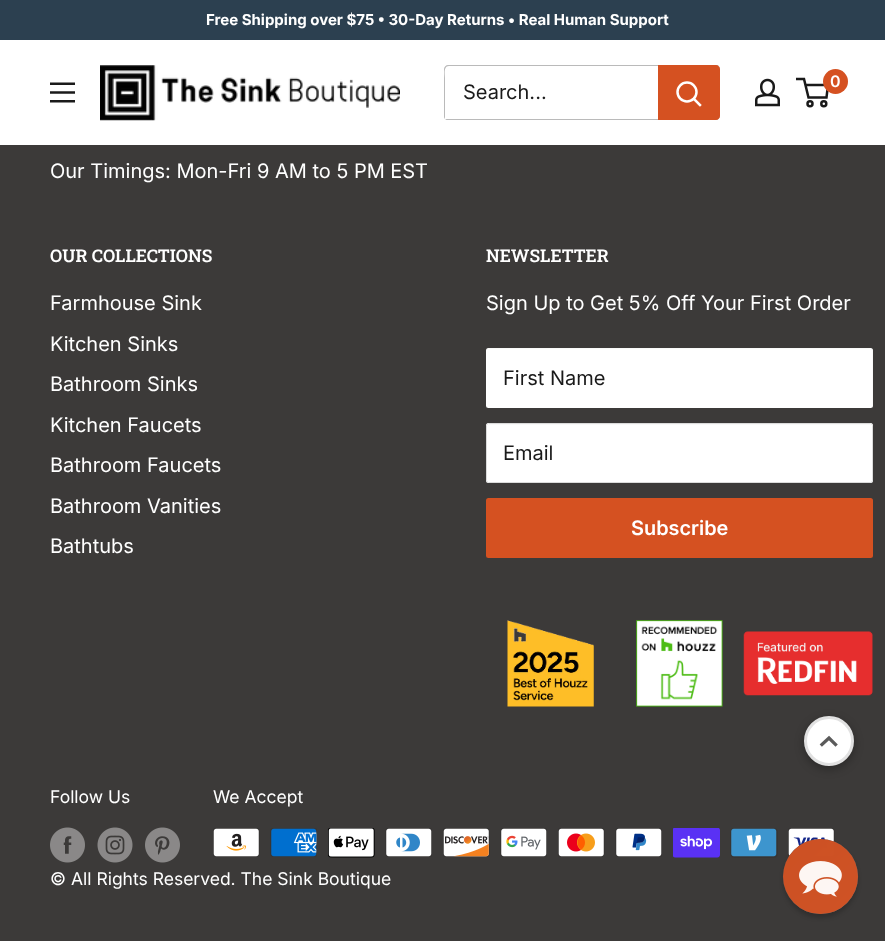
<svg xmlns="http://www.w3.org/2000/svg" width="885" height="941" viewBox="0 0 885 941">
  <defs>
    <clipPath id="clip1"><path d="M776 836H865V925H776ZM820.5 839C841 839 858 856 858 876.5C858 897 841 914 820.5 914C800 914 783 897 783 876.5C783 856 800 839 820.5 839Z" clip-rule="evenodd"/></clipPath>
    <linearGradient id="g1" gradientUnits="userSpaceOnUse" x1="783" y1="839" x2="858" y2="914"><stop offset="0" stop-color="#2c4050" stop-opacity="0.95"/><stop offset="1" stop-color="#6b7985" stop-opacity="0.95"/></linearGradient>
  </defs>
  <rect width="100%" height="100%" fill="#3c3a39"/>
  <path d="M0 0h885v40H0z" fill="#2c4050"/>
  <path d="M0 40h885v105H0z" fill="#fff"/>
  <image x="50" y="82" width="25" height="21" href="img/1.png"/>
  <image x="100" y="65" width="300" height="56" href="img/2.png"/>
  <path d="M445 119C446 120 447 120 448 120H716C718 120 720 118 720 116V69C720 68 719 67 719 66V107C719 110 721 119 715 119Z" fill="#bababa"/>
  <path d="M449 66H719C718 65 717 65 716 65H448C446 65 444 67 444 69V116C444 117 444 118 445 119V78C445 76 443 66 449 66Z" fill="#bababa"/>
  <path d="M658 65H716C718 65 720 67 720 69V116C720 118 718 120 716 120H658Z" fill="#d55121"/>
  <path d="M700 105L694 99" fill="none" stroke="#fff" stroke-width="2.5" stroke-linecap="square"/>
  <circle cx="687" cy="92" r="9.5" fill="none" stroke="#fff" stroke-width="2.5"/>
  <image x="755" y="78" width="25" height="29" href="img/3.png"/>
  <circle cx="810" cy="103.8" r="2.5" fill="none" stroke="#1a1a1a" stroke-width="2.5"/>
  <circle cx="823.8" cy="103.8" r="2.5" fill="none" stroke="#1a1a1a" stroke-width="2.5"/>
  <path d="M805.5 85H828L826.5 97.5H808.5L804 79H796" fill="none" stroke="#1a1a1a" stroke-width="2.5"/>
  <circle cx="835.5" cy="81.5" r="12.5" fill="#d55121"/>
  <rect x="486" y="348" width="387" height="60" rx="2.5" fill="#fff"/>
  <path d="M489 349H870C871 349 872 350 872 351V408C872 407 873 406 873 406V350C873 349 872 348 870 348H488C487 348 486 349 486 350V351C486 350 487 349 489 349Z" fill="#e8e8e840"/>
  <rect x="486" y="423" width="387" height="60" rx="2.5" fill="#fff"/>
  <path d="M489 425H870L871 426C871 425 871 424 870 424H489L488 425V426Z" fill="#f9f9f9"/>
  <rect x="486.5" y="423.5" width="386" height="59" rx="2" fill="none" stroke="#dbdbdb"/>
  <rect x="486" y="498" width="387" height="60" rx="2.5" fill="#d55121"/>
  <image x="507" y="620" width="87" height="87" href="img/4.png"/>
  <image x="636" y="620" width="87" height="87" href="img/5.png"/>
  <image x="743" y="631" width="130" height="65" href="img/6.png"/>
  <image x="50" y="827" width="35" height="36" href="img/7.png"/>
  <image x="97" y="827" width="36" height="36" href="img/8.png"/>
  <image x="145" y="827" width="35" height="36" href="img/9.png"/>
  <image x="213" y="828" width="47" height="29" href="img/10.png"/>
  <image x="270" y="828" width="47" height="29" href="img/11.png"/>
  <image x="328" y="828" width="47" height="30" href="img/12.png"/>
  <image x="385" y="828" width="47" height="29" href="img/13.png"/>
  <image x="443" y="828" width="47" height="29" href="img/14.png"/>
  <image x="500" y="828" width="47" height="29" href="img/15.png"/>
  <image x="558" y="828" width="47" height="29" href="img/16.png"/>
  <image x="615" y="828" width="47" height="29" href="img/17.png"/>
  <image x="673" y="828" width="47" height="30" href="img/18.png"/>
  <image x="730" y="828" width="48" height="30" href="img/19.png"/>
  <image x="788" y="828" width="47" height="29" href="img/20.png"/>
  <rect x="804" y="719" width="50" height="50" rx="25" fill="#0000004d" filter="blur(5px)"/>
  <circle cx="829" cy="741" r="23.5" fill="#fff" stroke="#e1e1e1" stroke-width="3"/>
  <path d="M822 744.5L829 738L835.5 744.5" fill="none" stroke="#5b5b5b" stroke-width="3.3" stroke-linecap="square"/>
  <g clip-path="url(#clip1)">
    <rect x="783" y="843" width="75" height="75" rx="37.5" fill="#00000030" filter="blur(2px)"/>
  </g>
  <circle cx="820.5" cy="876.5" r="37.5" fill="url(#g1)"/>
  <circle cx="820.5" cy="876.5" r="37.5" fill="#d55121f2"/>
  <image x="799" y="861" width="43" height="36" href="img/21.png"/>
  <text x="206" y="25" font-family="Inter" font-size="15" font-weight="bold" fill="#fff">Free Shipping over $75 • 30-Day Returns • Real Human Support</text>
  <text x="463" y="99" font-family="Inter" font-size="20" fill="#1a1a1a">Search...</text>
  <text x="830" y="87" font-family="'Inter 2'" font-size="16" font-weight="600" fill="#fff">0</text>
  <text x="50" y="178" font-family="Inter" font-size="20" fill="#fff">Our Timings: Mon-Fri 9 AM to 5 PM EST</text>
  <text x="50" y="262" font-family="Roboto Slab" font-size="17.5" font-weight="600" fill="#fff">OUR COLLECTIONS</text>
  <g font-family="Inter" font-size="20" fill="#fff">
    <text x="50" y="310">Farmhouse Sink</text>
    <text x="50" y="351">Kitchen Sinks</text>
    <text x="50" y="391">Bathroom Sinks</text>
    <text x="50" y="432">Kitchen Faucets</text>
    <text x="50" y="472">Bathroom Faucets</text>
    <text x="50" y="513">Bathroom Vanities</text>
    <text x="50" y="553">Bathtubs</text>
  </g>
  <text x="486" y="262" font-family="Roboto Slab" font-size="17.5" font-weight="600" fill="#fff">NEWSLETTER</text>
  <text x="486" y="310" font-family="Inter" font-size="20" fill="#fff">Sign Up to Get 5% Off Your First Order</text>
  <g font-family="Inter" font-size="20" fill="#1a1a1a">
    <text x="503" y="385">First Name</text>
    <text x="503" y="460">Email</text>
  </g>
  <text x="631" y="535" font-family="Inter" font-size="20" font-weight="600" fill="#fff">Subscribe</text>
  <g font-family="Inter" font-size="17.5" fill="#fff">
    <text x="50" y="803">Follow Us</text>
    <text x="213" y="803">We Accept</text>
    <text x="50" y="885">© All Rights Reserved. The Sink Boutique</text>
  </g>
</svg>
